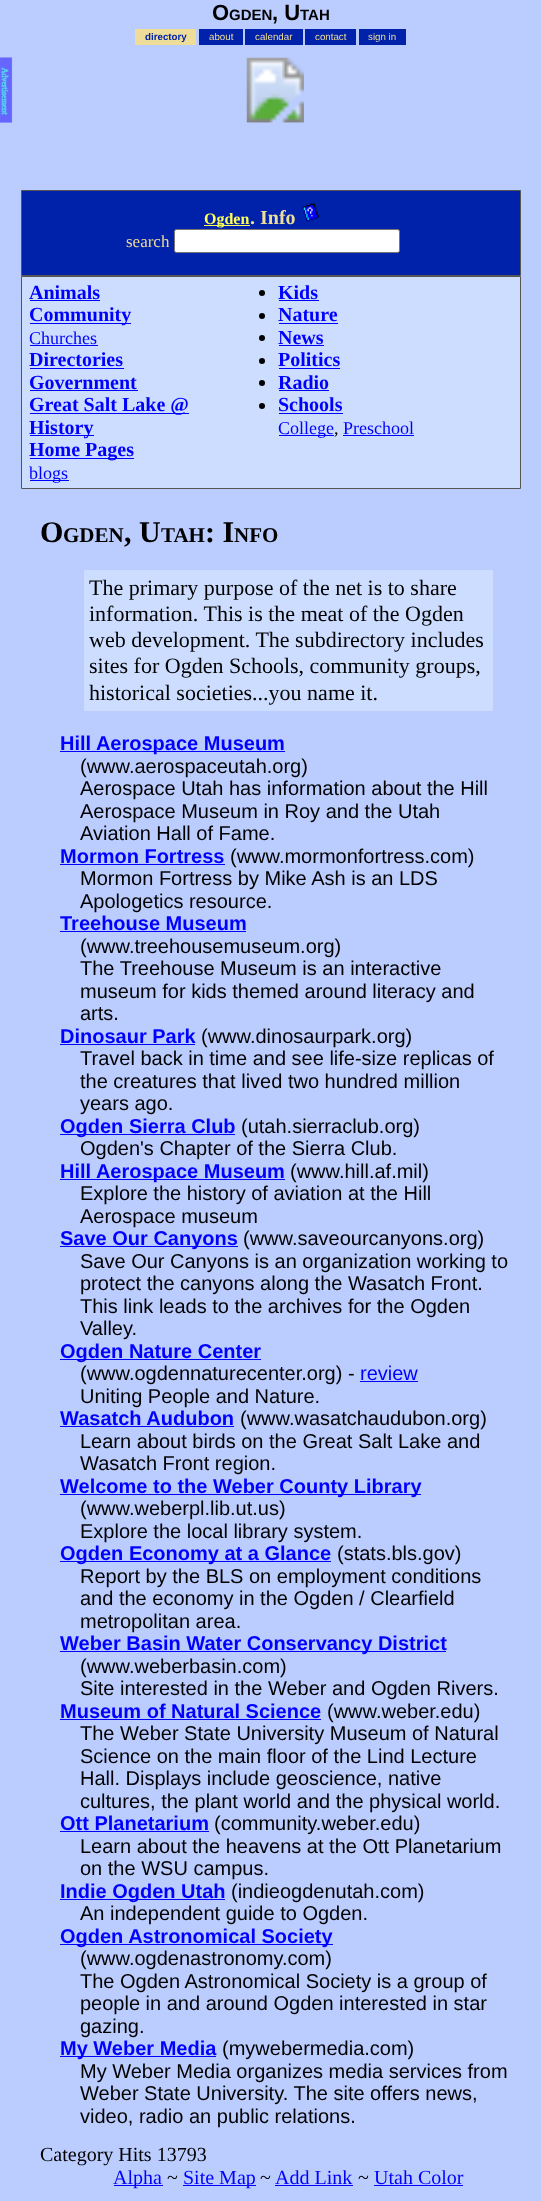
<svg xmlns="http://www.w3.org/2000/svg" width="541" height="2201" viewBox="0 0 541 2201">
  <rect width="100%" height="100%" fill="#bcf"/>
  <path d="M135 29h61v16H135z" fill="#ed9"/>
  <path d="M199 29h44v16H199z" fill="#02a"/>
  <path d="M245 29h58v16H245z" fill="#02a"/>
  <path d="M305 29h51v16H305z" fill="#02a"/>
  <path d="M359 29h47v16H359z" fill="#02a"/>
  <image x="0" y="57" width="304" height="66" href="img/1.png"/>
  <path d="M21.5 190.5h499v85H21.5z" fill="#02a" stroke="#555"/>
  <path d="M204 225h46v1H204z" fill="#ff5"/>
  <image x="302" y="203" width="17" height="19" href="img/2.png"/>
  <rect x="174.5" y="229.5" width="225" height="23" rx="2" fill="#fff" stroke="#767676"/>
  <path d="M21.5 276.5h499v212H21.5z" fill="#cdf" stroke="#555"/>
  <path d="M30 300h70v1H30z" fill="#00f"/>
  <path d="M30 323h101v1H30z" fill="#00f"/>
  <path d="M30 345h68v1H30z" fill="#00f"/>
  <path d="M30 368h94v1H30z" fill="#00f"/>
  <path d="M30 390h108v1H30z" fill="#00f"/>
  <path d="M30 413h159v1H30z" fill="#00f"/>
  <path d="M30 435h64v1H30z" fill="#00f"/>
  <path d="M30 458h104v1H30z" fill="#00f"/>
  <path d="M30 480h39v1H30z" fill="#00f"/>
  <circle cx="262" cy="293" r="3" fill="#000"/>
  <path d="M279 300h40v1H279z" fill="#00f"/>
  <circle cx="262" cy="316" r="3" fill="#000"/>
  <path d="M279 323h59v1H279z" fill="#00f"/>
  <circle cx="262" cy="338" r="3" fill="#000"/>
  <path d="M279 345h45v1H279z" fill="#00f"/>
  <circle cx="262" cy="361" r="3" fill="#000"/>
  <path d="M279 368h61v1H279z" fill="#00f"/>
  <circle cx="262" cy="383" r="3" fill="#000"/>
  <path d="M279 390h50v1H279z" fill="#00f"/>
  <circle cx="262" cy="406" r="3" fill="#000"/>
  <path d="M279 413h64v1H279z" fill="#00f"/>
  <path d="M279 435h55v1H279z" fill="#00f"/>
  <path d="M343 435h71v1H343z" fill="#00f"/>
  <path d="M84 570h409v141H84z" fill="#cdf"/>
  <path d="M60 751h225v1H60z" fill="#00f"/>
  <path d="M60 864h165v1H60z" fill="#00f"/>
  <path d="M60 931h186v1H60z" fill="#00f"/>
  <path d="M60 1044h135v1H60z" fill="#00f"/>
  <path d="M60 1134h175v1H60z" fill="#00f"/>
  <path d="M60 1179h225v1H60z" fill="#00f"/>
  <path d="M60 1246h178v1H60z" fill="#00f"/>
  <path d="M60 1359h201v1H60z" fill="#00f"/>
  <path d="M360 1381h58v1H360z" fill="#00f"/>
  <path d="M60 1426h174v1H60z" fill="#00f"/>
  <path d="M60 1494h361v1H60z" fill="#00f"/>
  <path d="M60 1561h271v1H60z" fill="#00f"/>
  <path d="M60 1651h386v1H60z" fill="#00f"/>
  <path d="M60 1719h261v1H60z" fill="#00f"/>
  <path d="M60 1831h149v1H60z" fill="#00f"/>
  <path d="M60 1899h165v1H60z" fill="#00f"/>
  <path d="M60 1944h273v1H60z" fill="#00f"/>
  <path d="M60 2056h156v1H60z" fill="#00f"/>
  <path d="M114 2185h49v1H114z" fill="#00f"/>
  <path d="M183 2185h73v1H183z" fill="#00f"/>
  <path d="M275 2185h78v1H275z" fill="#00f"/>
  <path d="M374 2185h89v1H374z" fill="#00f"/>
  <text x="212" y="20" font-family="Liberation Sans" font-size="22" font-weight="bold" fill="#000">O</text>
  <text x="229" y="20" font-family="Liberation Sans" font-size="15" font-weight="bold" fill="#000">GDEN</text>
  <text x="272" y="20" font-family="Liberation Sans" font-size="22" font-weight="bold" fill="#000">, U</text>
  <text x="300" y="20" font-family="Liberation Sans" font-size="15" font-weight="bold" fill="#000">TAH</text>
  <text x="145" y="40" font-family="Liberation Sans" font-size="9.75" font-weight="bold" fill="#02a">directory</text>
  <g font-family="Liberation Sans" font-size="9.75" fill="#ed9">
    <text x="209" y="40">about</text>
    <text x="255" y="40">calendar</text>
    <text x="315" y="40">contact</text>
    <text x="368" y="40">sign in</text>
  </g>
  <text x="204" y="224" font-family="Liberation Serif" font-size="16" font-weight="bold" fill="#ff5">Ogden</text>
  <text x="250" y="224" font-family="Liberation Serif" font-size="20" font-weight="bold" fill="#ed9">. Info</text>
  <text x="126" y="247" font-family="Liberation Serif" font-size="17" fill="#ed9">search</text>
  <g font-family="Liberation Serif" font-size="20" font-weight="bold" fill="#00f">
    <text x="29" y="299">Animals</text>
    <text x="29" y="321">Community</text>
  </g>
  <text x="29" y="344" font-family="Liberation Serif" font-size="18" fill="#00f">Churches</text>
  <g font-family="Liberation Serif" font-size="20" font-weight="bold" fill="#00f">
    <text x="29" y="366">Directories</text>
    <text x="29" y="389">Government</text>
    <text x="29" y="411">Great Salt Lake @</text>
    <text x="29" y="434">History</text>
    <text x="29" y="456">Home Pages</text>
  </g>
  <text x="29" y="479" font-family="Liberation Serif" font-size="18" fill="#00f">blogs</text>
  <g font-family="Liberation Serif" font-size="20" font-weight="bold" fill="#00f">
    <text x="278" y="299">Kids</text>
    <text x="278" y="321">Nature</text>
    <text x="278" y="344">News</text>
    <text x="278" y="366">Politics</text>
    <text x="278" y="389">Radio</text>
    <text x="278" y="411">Schools</text>
  </g>
  <text x="278" y="434" font-family="Liberation Serif" font-size="18" fill="#00f">College</text>
  <text x="334" y="434" font-family="Liberation Serif" font-size="18" fill="#000">,</text>
  <text x="343" y="434" font-family="Liberation Serif" font-size="18" fill="#00f">Preschool</text>
  <text x="40" y="542" font-family="Liberation Serif" font-size="30" font-weight="bold" fill="#000">O</text>
  <text x="63" y="542" font-family="Liberation Serif" font-size="21" font-weight="bold" fill="#000">GDEN</text>
  <text x="124" y="542" font-family="Liberation Serif" font-size="30" font-weight="bold" fill="#000">, U</text>
  <text x="161" y="542" font-family="Liberation Serif" font-size="21" font-weight="bold" fill="#000">TAH</text>
  <text x="205" y="542" font-family="Liberation Serif" font-size="30" font-weight="bold" fill="#000">: I</text>
  <text x="234" y="542" font-family="Liberation Serif" font-size="21" font-weight="bold" fill="#000">NFO</text>
  <g font-family="Liberation Serif" font-size="22" fill="#000">
    <text x="89" y="595">The primary purpose of the net is to share</text>
    <text x="89" y="621">information. This is the meat of the Ogden</text>
    <text x="89" y="647">web development. The subdirectory includes</text>
    <text x="89" y="673">sites for Ogden Schools, community groups,</text>
    <text x="89" y="700">historical societies...you name it.</text>
  </g>
  <text x="60" y="750" font-family="Liberation Sans" font-size="20" font-weight="bold" fill="#00f">Hill Aerospace Museum</text>
  <g font-family="Liberation Sans" font-size="20" fill="#000">
    <text x="80" y="773">(www.aerospaceutah.org)</text>
    <text x="80" y="795">Aerospace Utah has information about the Hill</text>
    <text x="80" y="818">Aerospace Museum in Roy and the Utah</text>
    <text x="80" y="840">Aviation Hall of Fame.</text>
  </g>
  <text x="60" y="863" font-family="Liberation Sans" font-size="20" font-weight="bold" fill="#00f">Mormon Fortress</text>
  <g font-family="Liberation Sans" font-size="20" fill="#000">
    <text x="230" y="863">(www.mormonfortress.com)</text>
    <text x="80" y="885">Mormon Fortress by Mike Ash is an LDS</text>
    <text x="80" y="908">Apologetics resource.</text>
  </g>
  <text x="60" y="930" font-family="Liberation Sans" font-size="20" font-weight="bold" fill="#00f">Treehouse Museum</text>
  <g font-family="Liberation Sans" font-size="20" fill="#000">
    <text x="80" y="953">(www.treehousemuseum.org)</text>
    <text x="80" y="975">The Treehouse Museum is an interactive</text>
    <text x="80" y="998">museum for kids themed around literacy and</text>
    <text x="80" y="1020">arts.</text>
  </g>
  <text x="60" y="1043" font-family="Liberation Sans" font-size="20" font-weight="bold" fill="#00f">Dinosaur Park</text>
  <g font-family="Liberation Sans" font-size="20" fill="#000">
    <text x="201" y="1043">(www.dinosaurpark.org)</text>
    <text x="80" y="1065">Travel back in time and see life-size replicas of</text>
    <text x="80" y="1088">the creatures that lived two hundred million</text>
    <text x="80" y="1110">years ago.</text>
  </g>
  <text x="60" y="1133" font-family="Liberation Sans" font-size="20" font-weight="bold" fill="#00f">Ogden Sierra Club</text>
  <g font-family="Liberation Sans" font-size="20" fill="#000">
    <text x="241" y="1133">(utah.sierraclub.org)</text>
    <text x="80" y="1155">Ogden's Chapter of the Sierra Club.</text>
  </g>
  <text x="60" y="1178" font-family="Liberation Sans" font-size="20" font-weight="bold" fill="#00f">Hill Aerospace Museum</text>
  <g font-family="Liberation Sans" font-size="20" fill="#000">
    <text x="290" y="1178">(www.hill.af.mil)</text>
    <text x="80" y="1200">Explore the history of aviation at the Hill</text>
    <text x="80" y="1223">Aerospace museum</text>
  </g>
  <text x="60" y="1245" font-family="Liberation Sans" font-size="20" font-weight="bold" fill="#00f">Save Our Canyons</text>
  <g font-family="Liberation Sans" font-size="20" fill="#000">
    <text x="243" y="1245">(www.saveourcanyons.org)</text>
    <text x="80" y="1268">Save Our Canyons is an organization working to</text>
    <text x="80" y="1290">protect the canyons along the Wasatch Front.</text>
    <text x="80" y="1313">This link leads to the archives for the Ogden</text>
    <text x="80" y="1335">Valley.</text>
  </g>
  <text x="60" y="1358" font-family="Liberation Sans" font-size="20" font-weight="bold" fill="#00f">Ogden Nature Center</text>
  <text x="80" y="1380" font-family="Liberation Sans" font-size="20" fill="#000">(www.ogdennaturecenter.org) -</text>
  <text x="360" y="1380" font-family="Liberation Sans" font-size="20" fill="#00f">review</text>
  <text x="80" y="1403" font-family="Liberation Sans" font-size="20" fill="#000">Uniting People and Nature.</text>
  <text x="60" y="1425" font-family="Liberation Sans" font-size="20" font-weight="bold" fill="#00f">Wasatch Audubon</text>
  <g font-family="Liberation Sans" font-size="20" fill="#000">
    <text x="240" y="1425">(www.wasatchaudubon.org)</text>
    <text x="80" y="1448">Learn about birds on the Great Salt Lake and</text>
    <text x="80" y="1470">Wasatch Front region.</text>
  </g>
  <text x="60" y="1493" font-family="Liberation Sans" font-size="20" font-weight="bold" fill="#00f">Welcome to the Weber County Library</text>
  <g font-family="Liberation Sans" font-size="20" fill="#000">
    <text x="80" y="1515">(www.weberpl.lib.ut.us)</text>
    <text x="80" y="1538">Explore the local library system.</text>
  </g>
  <text x="60" y="1560" font-family="Liberation Sans" font-size="20" font-weight="bold" fill="#00f">Ogden Economy at a Glance</text>
  <g font-family="Liberation Sans" font-size="20" fill="#000">
    <text x="337" y="1560">(stats.bls.gov)</text>
    <text x="80" y="1583">Report by the BLS on employment conditions</text>
    <text x="80" y="1605">and the economy in the Ogden / Clearfield</text>
    <text x="80" y="1628">metropolitan area.</text>
  </g>
  <text x="60" y="1650" font-family="Liberation Sans" font-size="20" font-weight="bold" fill="#00f">Weber Basin Water Conservancy District</text>
  <g font-family="Liberation Sans" font-size="20" fill="#000">
    <text x="80" y="1673">(www.weberbasin.com)</text>
    <text x="80" y="1695">Site interested in the Weber and Ogden Rivers.</text>
  </g>
  <text x="60" y="1718" font-family="Liberation Sans" font-size="20" font-weight="bold" fill="#00f">Museum of Natural Science</text>
  <g font-family="Liberation Sans" font-size="20" fill="#000">
    <text x="327" y="1718">(www.weber.edu)</text>
    <text x="80" y="1740">The Weber State University Museum of Natural</text>
    <text x="80" y="1763">Science on the main floor of the Lind Lecture</text>
    <text x="80" y="1785">Hall. Displays include geoscience, native</text>
    <text x="80" y="1808">cultures, the plant world and the physical world.</text>
  </g>
  <text x="60" y="1830" font-family="Liberation Sans" font-size="20" font-weight="bold" fill="#00f">Ott Planetarium</text>
  <g font-family="Liberation Sans" font-size="20" fill="#000">
    <text x="214" y="1830">(community.weber.edu)</text>
    <text x="80" y="1853">Learn about the heavens at the Ott Planetarium</text>
    <text x="80" y="1875">on the WSU campus.</text>
  </g>
  <text x="60" y="1898" font-family="Liberation Sans" font-size="20" font-weight="bold" fill="#00f">Indie Ogden Utah</text>
  <g font-family="Liberation Sans" font-size="20" fill="#000">
    <text x="231" y="1898">(indieogdenutah.com)</text>
    <text x="80" y="1920">An independent guide to Ogden.</text>
  </g>
  <text x="60" y="1943" font-family="Liberation Sans" font-size="20" font-weight="bold" fill="#00f">Ogden Astronomical Society</text>
  <g font-family="Liberation Sans" font-size="20" fill="#000">
    <text x="80" y="1965">(www.ogdenastronomy.com)</text>
    <text x="80" y="1988">The Ogden Astronomical Society is a group of</text>
    <text x="80" y="2010">people in and around Ogden interested in star</text>
    <text x="80" y="2033">gazing.</text>
  </g>
  <text x="60" y="2055" font-family="Liberation Sans" font-size="20" font-weight="bold" fill="#00f">My Weber Media</text>
  <g font-family="Liberation Sans" font-size="20" fill="#000">
    <text x="222" y="2055">(mywebermedia.com)</text>
    <text x="80" y="2078">My Weber Media organizes media services from</text>
    <text x="80" y="2100">Weber State University. The site offers news,</text>
    <text x="80" y="2123">video, radio an public relations.</text>
  </g>
  <text x="40" y="2161" font-family="Liberation Serif" font-size="20" fill="#000">Category Hits 13793</text>
  <text x="113" y="2184" font-family="Liberation Serif" font-size="20" fill="#00f">Alpha</text>
  <text x="167" y="2184" font-family="Liberation Serif" font-size="20" fill="#000">~</text>
  <text x="183" y="2184" font-family="Liberation Serif" font-size="20" fill="#00f">Site Map</text>
  <text x="260" y="2184" font-family="Liberation Serif" font-size="20" fill="#000">~</text>
  <text x="275" y="2184" font-family="Liberation Serif" font-size="20" fill="#00f">Add Link</text>
  <text x="358" y="2184" font-family="Liberation Serif" font-size="20" fill="#000">~</text>
  <text x="374" y="2184" font-family="Liberation Serif" font-size="20" fill="#00f">Utah Color</text>
</svg>
